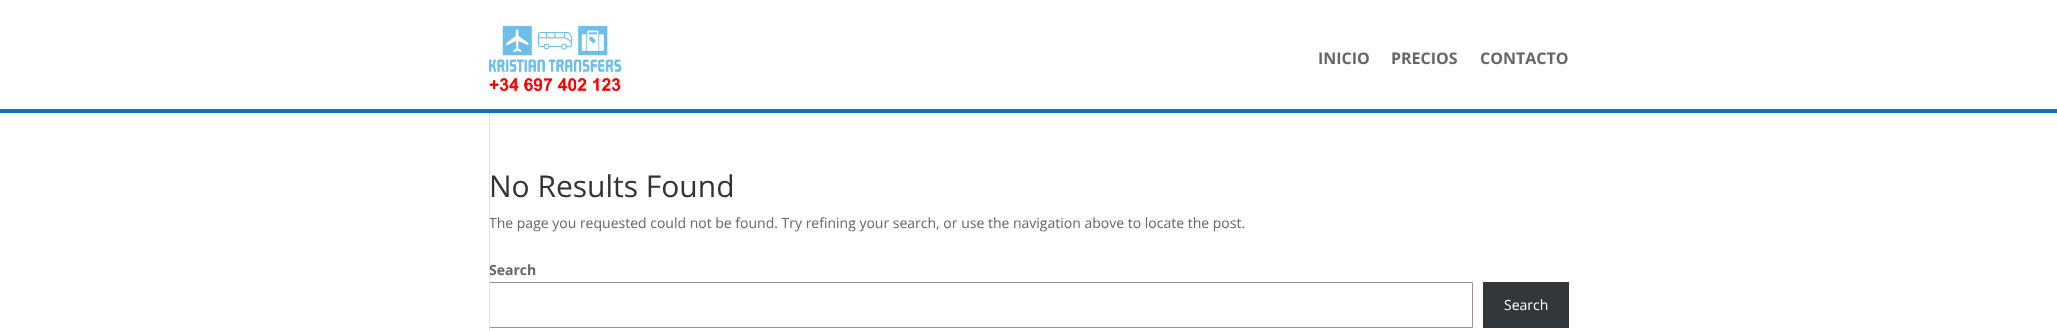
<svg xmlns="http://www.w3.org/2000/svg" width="2057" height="331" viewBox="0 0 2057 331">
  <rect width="100%" height="100%" fill="#fff"/>
  <path d="M0 109h2057v4H0z" fill="#0c71c3"/>
  <image x="489" y="26" width="132" height="65" href="img/1.png"/>
  <path d="M489.5 282.5h983v45H489.5z" fill="none" stroke="#949494"/>
  <path d="M1483 282h86v46H1483z" fill="#32373c"/>
  <g font-family="Open Sans" font-size="16" font-weight="bold" fill="#666">
    <text x="1318" y="64">INICIO</text>
    <text x="1391" y="64">PRECIOS</text>
    <text x="1480" y="64">CONTACTO</text>
  </g>
  <text x="489" y="197" font-family="Open Sans" font-size="30" fill="#333">No Results Found</text>
  <text x="489" y="228" font-family="Open Sans" font-size="14" fill="#666">The page you requested could not be found. Try refining your search, or use the navigation above to locate the post.</text>
  <text x="489" y="275" font-family="Open Sans" font-size="14" font-weight="bold" fill="#666">Search</text>
  <path d="M489 113h1v218H489z" fill="#e2e2e2"/>
  <text x="1504" y="310" font-family="Open Sans" font-size="14" fill="#fff">Search</text>
</svg>
